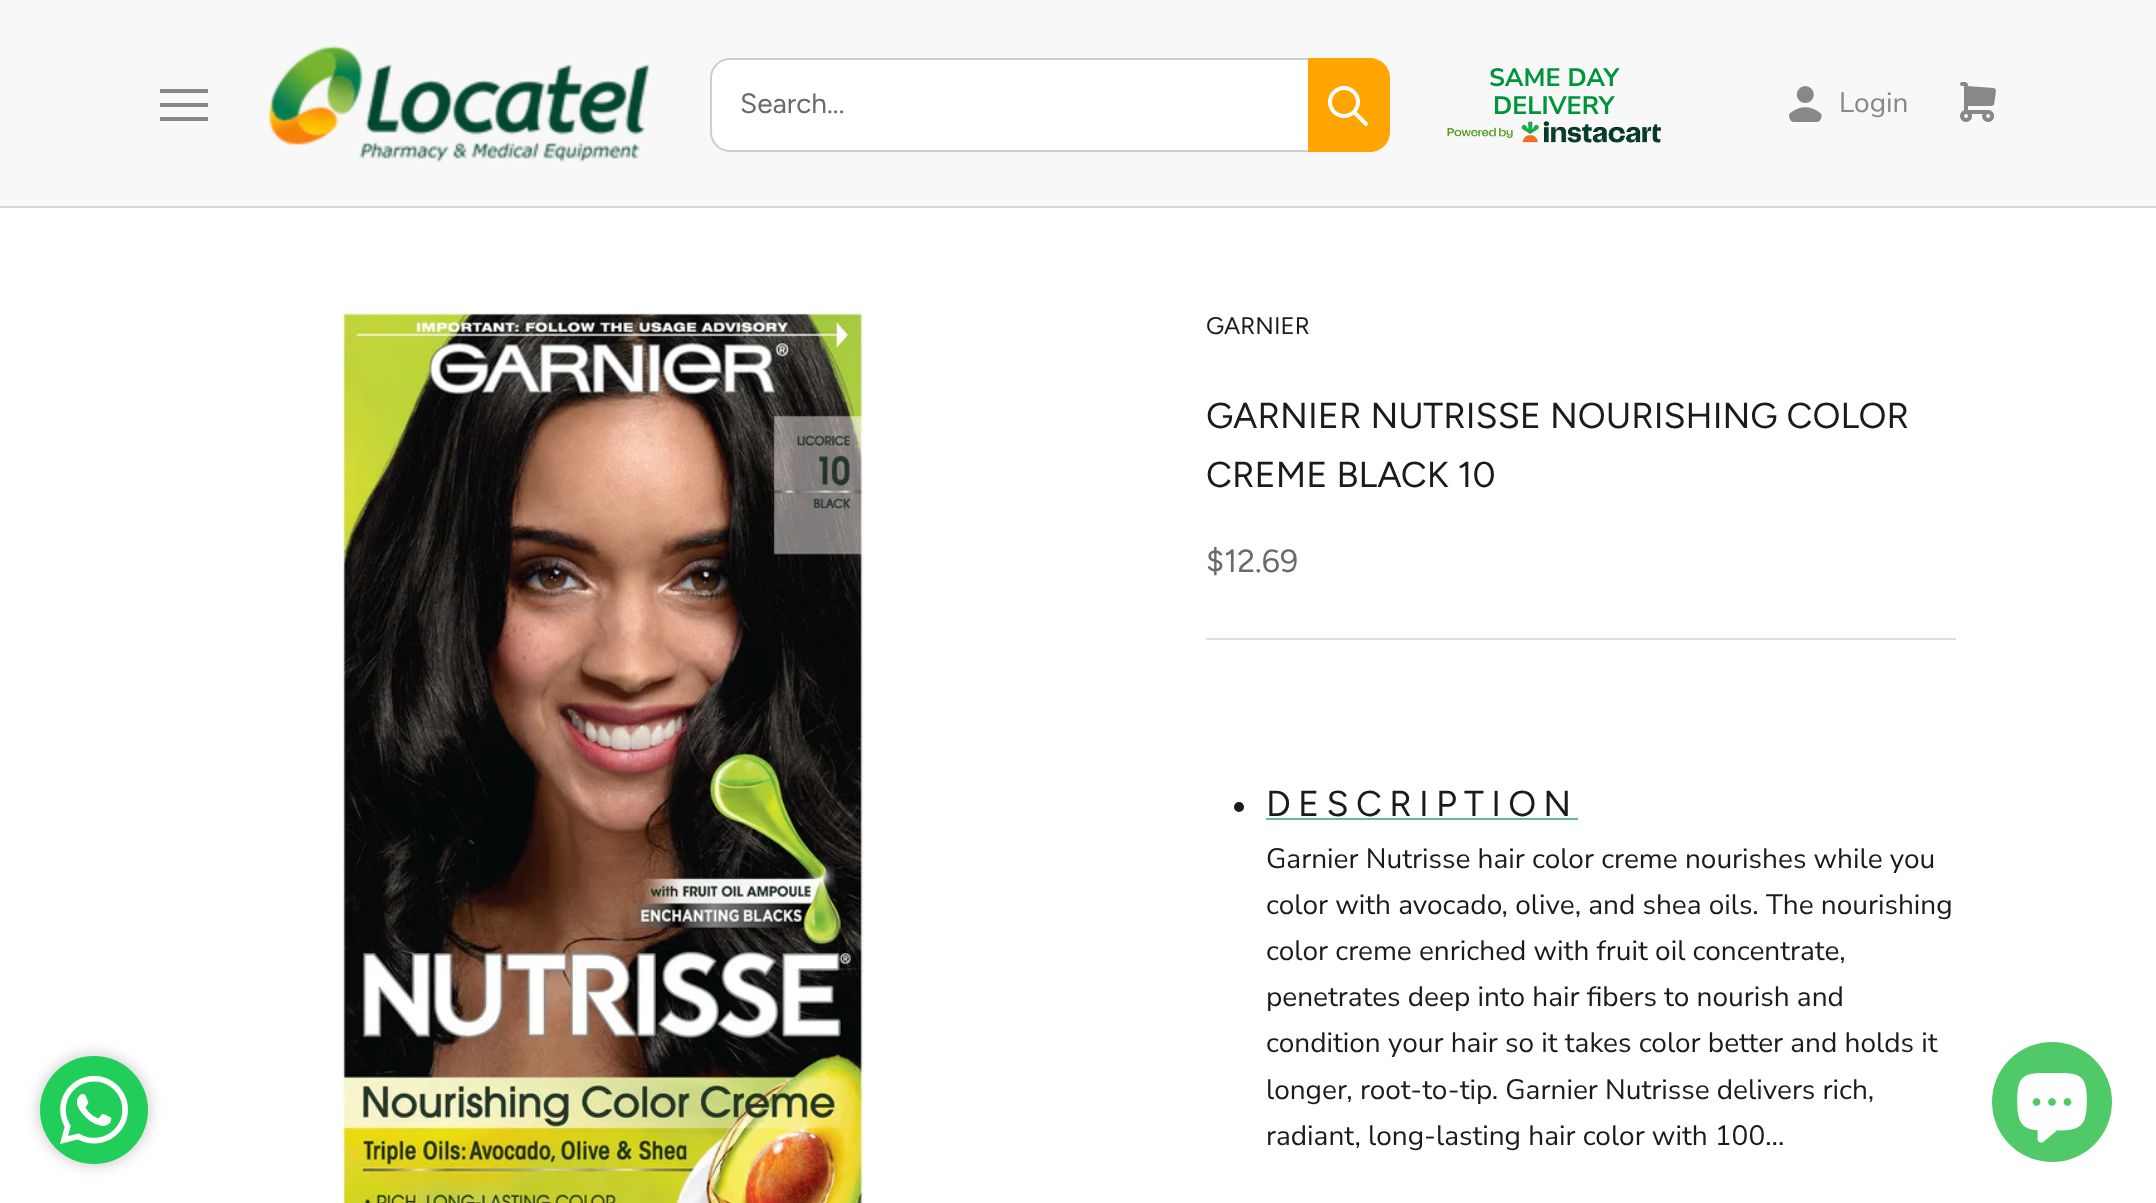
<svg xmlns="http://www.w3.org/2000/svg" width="2156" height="1203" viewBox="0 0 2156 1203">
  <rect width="100%" height="100%" fill="#fff"/>
  <rect x="40" y="1056" width="108" height="108" rx="54" fill="#c2c2c2" filter="blur(8px)"/>
  <circle cx="94" cy="1110" r="54" fill="#22ce5a"/>
  <image x="60" y="1076" width="68" height="68" href="img/1.png"/>
  <path d="M0 0h2156v206H0z" fill="#f8f8f8"/>
  <path d="M0 206h2156v2H0z" fill="#d7d7d7"/>
  <path d="M160 121V117H208V121ZM160 103H208V107H160ZM160 89H208V93H160Z" fill="#888"/>
  <image x="267" y="45" width="383" height="118" href="img/2.png"/>
  <rect x="710" y="58" width="680" height="94" rx="20" fill="#fff"/>
  <path d="M730 58H1308V152H730C719 152 710 143 710 132V78C710 67 719 58 730 58ZM730 60H1308V150H730C720 150 712 142 712 132V78C712 68 720 60 730 60Z" fill="#cecece" fill-rule="evenodd"/>
  <path d="M1308 58H1370C1381 58 1390 67 1390 78V132C1390 143 1381 152 1370 152H1308Z" fill="#ffa400"/>
  <image x="1328" y="86" width="40" height="40" href="img/3.png"/>
  <image x="1447" y="121" width="214" height="22" href="img/4.png"/>
  <image x="1789" y="86" width="33" height="36" href="img/5.png"/>
  <image x="1960" y="82" width="36" height="40" href="img/6.png"/>
  <image x="341" y="308" width="524" height="895" href="img/7.png"/>
  <path d="M1206 638h750v2H1206z" fill="#ddd"/>
  <circle cx="1239" cy="807" r="5" fill="#1c1b1b"/>
  <path d="M1266 818h312v2H1266z" fill="#66bf89"/>
  <circle cx="2052" cy="1102" r="60" fill="#50ca68"/>
  <image x="2017" y="1073" width="70" height="70" href="img/8.png"/>
  <text x="740" y="113" font-family="Figtree" font-size="28" fill="#6a6a6a">Search...</text>
  <g font-family="Nunito Sans" font-size="25.25" font-weight="bold" fill="#00953b">
    <text x="1489" y="86">SAME DAY</text>
    <text x="1493" y="114">DELIVERY</text>
  </g>
  <text x="1839" y="112" font-family="Nunito Sans" font-size="28" fill="#888">Login</text>
  <text x="1206" y="334" font-family="Figtree" font-size="24" fill="#1c1b1b">GARNIER</text>
  <g font-family="Figtree" font-size="36" fill="#1c1b1b">
    <text x="1206" y="428">GARNIER NUTRISSE NOURISHING COLOR</text>
    <text x="1206" y="487">CREME BLACK 10</text>
  </g>
  <text x="1206" y="572" font-family="Figtree" font-size="32" fill="#6a6a6a">$12.69</text>
  <text x="1266" y="816" font-family="Figtree" font-size="36" letter-spacing="7.25" fill="#1c1b1b">DESCRIPTION</text>
  <g font-family="Nunito Sans" font-size="28" fill="#1c1b1b">
    <text x="1266" y="868">Garnier Nutrisse hair color creme nourishes while you</text>
    <text x="1266" y="914">color with avocado, olive, and shea oils. The nourishing</text>
    <text x="1266" y="960">color creme enriched with fruit oil concentrate,</text>
    <text x="1266" y="1006">penetrates deep into hair fibers to nourish and</text>
    <text x="1266" y="1052">condition your hair so it takes color better and holds it</text>
    <text x="1266" y="1099">longer, root-to-tip. Garnier Nutrisse delivers rich,</text>
    <text x="1266" y="1145">radiant, long-lasting hair color with 100...</text>
  </g>
</svg>
